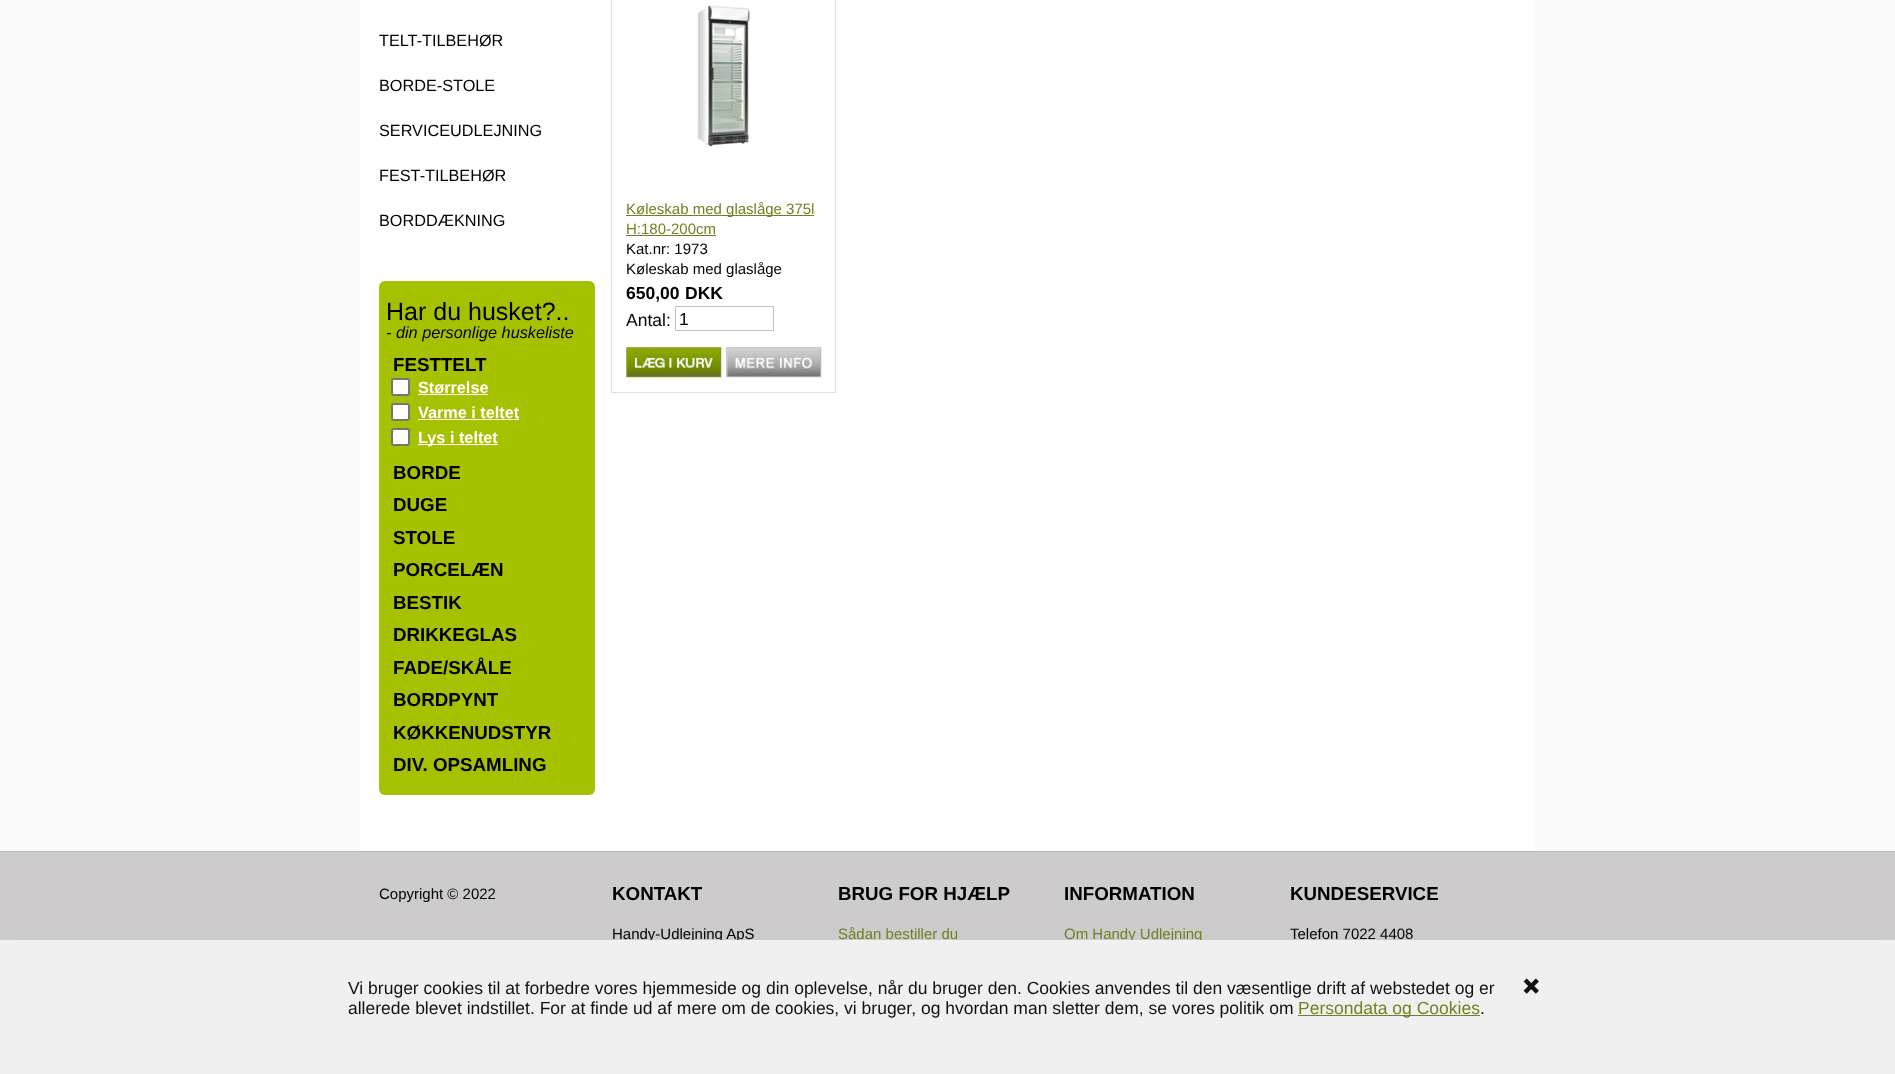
<svg xmlns="http://www.w3.org/2000/svg" width="1895" height="1074" viewBox="0 0 1895 1074">
  <rect width="100%" height="100%" fill="#fafafa"/>
  <path d="M360 0h1175v851H360z" fill="#fff"/>
  <rect x="379" y="281" width="216" height="514" rx="6" fill="#a6c100"/>
  <rect x="392" y="379" width="17" height="16" rx="2" fill="#fff" stroke="#767676" stroke-width="2"/>
  <path d="M418 394h70v1H418z" fill="#fff"/>
  <rect x="392" y="404" width="17" height="16" rx="2" fill="#fff" stroke="#767676" stroke-width="2"/>
  <path d="M418 419h101v1H418z" fill="#fff"/>
  <rect x="392" y="429" width="17" height="16" rx="2" fill="#fff" stroke="#767676" stroke-width="2"/>
  <path d="M418 444h80v1H418z" fill="#fff"/>
  <path d="M611.5 -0.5h224v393H611.5z" fill="none" stroke="#e0e0e0"/>
  <image x="697" y="5" width="53" height="142" href="img/1.png"/>
  <path d="M626 215h188v1H626z" fill="#738021"/>
  <path d="M626 235h90v1H626z" fill="#738021"/>
  <path d="M675.5 306.5h98v24H675.5z" fill="none" stroke="#c0c0c0"/>
  <image x="626" y="347" width="96" height="31" href="img/2.png"/>
  <image x="726" y="347" width="96" height="31" href="img/3.png"/>
  <path d="M0 852h1895v88H0z" fill="#cdcbcb"/>
  <path d="M0 851h1895v1H0z" fill="#b8b6b6"/>
  <path d="M0 940h1895v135H0z" fill="#ccc" filter="blur(6px)"/>
  <g font-family="Liberation Sans" font-size="16.25" fill="#000">
    <text x="379" y="46">TELT-TILBEHØR</text>
    <text x="379" y="91">BORDE-STOLE</text>
    <text x="379" y="136">SERVICEUDLEJNING</text>
    <text x="379" y="181">FEST-TILBEHØR</text>
    <text x="379" y="226">BORDDÆKNING</text>
  </g>
  <text x="386" y="320" font-family="Liberation Sans" font-size="25" fill="#000">Har du husket?..</text>
  <text x="386" y="338" font-family="Liberation Sans" font-size="16.25" font-style="italic" fill="#000">- din personlige huskeliste</text>
  <text x="393" y="371" font-family="Liberation Sans" font-size="18.75" font-weight="bold" fill="#000">FESTTELT</text>
  <g font-family="Liberation Sans" font-size="16.25" font-weight="bold" fill="#fff">
    <text x="418" y="393">Størrelse</text>
    <text x="418" y="418">Varme i teltet</text>
    <text x="418" y="443">Lys i teltet</text>
  </g>
  <g font-family="Liberation Sans" font-size="18.75" font-weight="bold" fill="#000">
    <text x="393" y="479">BORDE</text>
    <text x="393" y="511">DUGE</text>
    <text x="393" y="544">STOLE</text>
    <text x="393" y="576">PORCELÆN</text>
    <text x="393" y="609">BESTIK</text>
    <text x="393" y="641">DRIKKEGLAS</text>
    <text x="393" y="674">FADE/SKÅLE</text>
    <text x="393" y="706">BORDPYNT</text>
    <text x="393" y="739">KØKKENUDSTYR</text>
    <text x="393" y="771">DIV. OPSAMLING</text>
  </g>
  <g font-family="Liberation Sans" font-size="15" fill="#738021">
    <text x="626" y="214">Køleskab med glaslåge 375l</text>
    <text x="626" y="234">H:180-200cm</text>
  </g>
  <g font-family="Liberation Sans" font-size="15" fill="#000">
    <text x="626" y="254">Kat.nr: 1973</text>
    <text x="626" y="274">Køleskab med glaslåge</text>
  </g>
  <g font-family="Liberation Sans" font-size="17.5" font-weight="bold" fill="#000">
    <text x="626" y="299">650,00</text>
    <text x="685" y="299">DKK</text>
  </g>
  <g font-family="Liberation Sans" font-size="17.5" fill="#000">
    <text x="626" y="326">Antal:</text>
    <text x="679" y="325">1</text>
  </g>
  <text x="379" y="899" font-family="Liberation Sans" font-size="15" fill="#000">Copyright © 2022</text>
  <text x="612" y="900" font-family="Liberation Sans" font-size="18.75" font-weight="bold" fill="#000">KONTAKT</text>
  <text x="612" y="939" font-family="Liberation Sans" font-size="15" fill="#000">Handy-Udlejning ApS</text>
  <text x="838" y="900" font-family="Liberation Sans" font-size="18.75" font-weight="bold" fill="#000">BRUG FOR HJÆLP</text>
  <text x="838" y="939" font-family="Liberation Sans" font-size="15" fill="#738021">Sådan bestiller du</text>
  <text x="1064" y="900" font-family="Liberation Sans" font-size="18.75" font-weight="bold" fill="#000">INFORMATION</text>
  <text x="1064" y="939" font-family="Liberation Sans" font-size="15" fill="#738021">Om Handy Udlejning</text>
  <text x="1290" y="900" font-family="Liberation Sans" font-size="18.75" font-weight="bold" fill="#000">KUNDESERVICE</text>
  <text x="1290" y="939" font-family="Liberation Sans" font-size="15" fill="#000">Telefon 7022 4408</text>
  <path d="M0 940h1895v134H0z" fill="#f0f0f0"/>
  <g font-family="Liberation Sans" font-size="17.5" fill="#111">
    <text x="348" y="994">Vi bruger cookies til at forbedre vores hjemmeside og din oplevelse, når du bruger den. Cookies anvendes til den væsentlige drift af webstedet og er</text>
    <text x="348" y="1014">allerede blevet indstillet. For at finde ud af mere om de cookies, vi bruger, og hvordan man sletter dem, se vores politik om</text>
  </g>
  <path d="M1298 1015h182v1H1298z" fill="#738021"/>
  <text x="1298" y="1014" font-family="Liberation Sans" font-size="17.5" fill="#738021">Persondata og Cookies</text>
  <text x="1480" y="1014" font-family="Liberation Sans" font-size="17.5" fill="#111">.</text>
  <image x="1523" y="978" width="16" height="16" href="img/4.png"/>
</svg>
